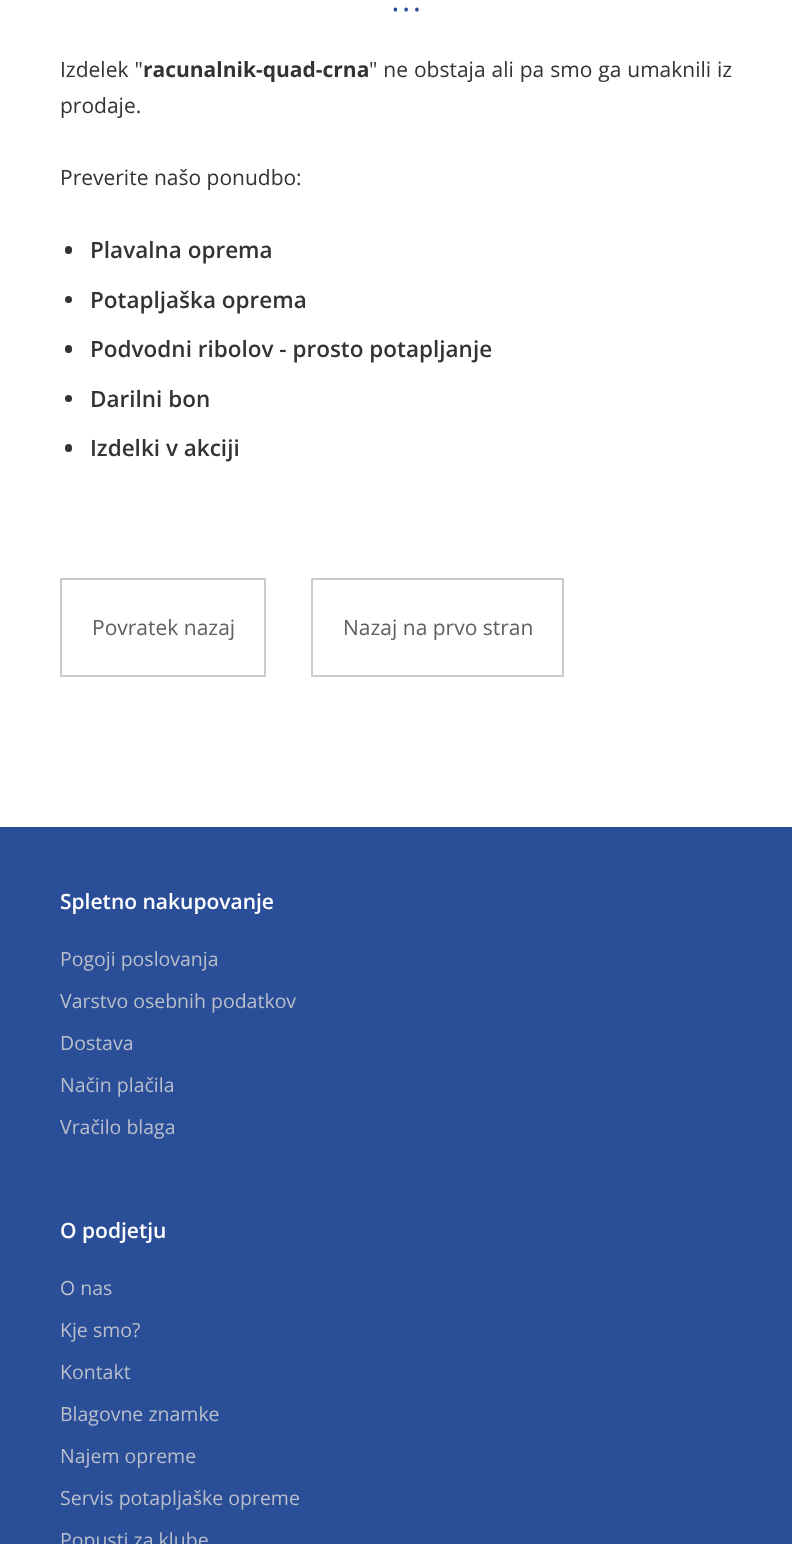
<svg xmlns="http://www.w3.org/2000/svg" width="792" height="1544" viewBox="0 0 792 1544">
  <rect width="100%" height="100%" fill="#fff"/>
  <rect x="65" y="246" width="7" height="8" rx="3.5" fill="#333"/>
  <circle cx="68.5" cy="299.5" r="3.5" fill="#333"/>
  <rect x="65" y="345" width="7" height="8" rx="3.5" fill="#333"/>
  <circle cx="68.5" cy="398.5" r="3.5" fill="#333"/>
  <rect x="65" y="444" width="7" height="8" rx="3.5" fill="#333"/>
  <path d="M61 579h204v97H61z" fill="none" stroke="#ccc" stroke-width="2"/>
  <path d="M312 579h251v97H312z" fill="none" stroke="#ccc" stroke-width="2"/>
  <path d="M0 827h792v717H0z" fill="#2a4e98"/>
  <text x="390" y="11" font-family="Open Sans" font-size="45" font-weight="300" fill="#2a4e98">...</text>
  <text x="60" y="77" word-spacing="0.5" font-family="Open Sans" font-size="21" fill="#333">Izdelek "</text>
  <text x="143" y="77" font-family="Open Sans" font-size="21" font-weight="bold" fill="#333">racunalnik-quad-crna</text>
  <g font-family="Open Sans" font-size="21" fill="#333">
    <text x="369" y="77" word-spacing="0.5">" ne obstaja ali pa smo ga umaknili iz</text>
    <text x="60" y="113">prodaje.</text>
    <text x="60" y="185">Preverite našo ponudbo:</text>
  </g>
  <g font-family="Open Sans" font-size="22.5" font-weight="600" fill="#333">
    <text x="90" y="258">Plavalna oprema</text>
    <text x="90" y="308">Potapljaška oprema</text>
    <text x="90" y="357">Podvodni ribolov - prosto potapljanje</text>
    <text x="90" y="407">Darilni bon</text>
    <text x="90" y="456">Izdelki v akciji</text>
  </g>
  <g font-family="Open Sans" font-size="21" fill="#606060">
    <text x="92" y="635">Povratek nazaj</text>
    <text x="343" y="635">Nazaj na prvo stran</text>
  </g>
  <text x="60" y="909" font-family="Open Sans" font-size="21" font-weight="600" fill="#fff">Spletno nakupovanje</text>
  <g font-family="Open Sans" font-size="19.5" fill="#b9bfcb">
    <text x="60" y="966">Pogoji poslovanja</text>
    <text x="60" y="1008">Varstvo osebnih podatkov</text>
    <text x="60" y="1050">Dostava</text>
    <text x="60" y="1092">Način plačila</text>
    <text x="60" y="1134">Vračilo blaga</text>
  </g>
  <text x="60" y="1238" font-family="Open Sans" font-size="21" font-weight="600" fill="#fff">O podjetju</text>
  <g font-family="Open Sans" font-size="19.5" fill="#b9bfcb">
    <text x="60" y="1295">O nas</text>
    <text x="60" y="1337">Kje smo?</text>
    <text x="60" y="1379">Kontakt</text>
    <text x="60" y="1421">Blagovne znamke</text>
    <text x="60" y="1463">Najem opreme</text>
    <text x="60" y="1505">Servis potapljaške opreme</text>
    <text x="60" y="1547">Popusti za klube</text>
  </g>
</svg>
